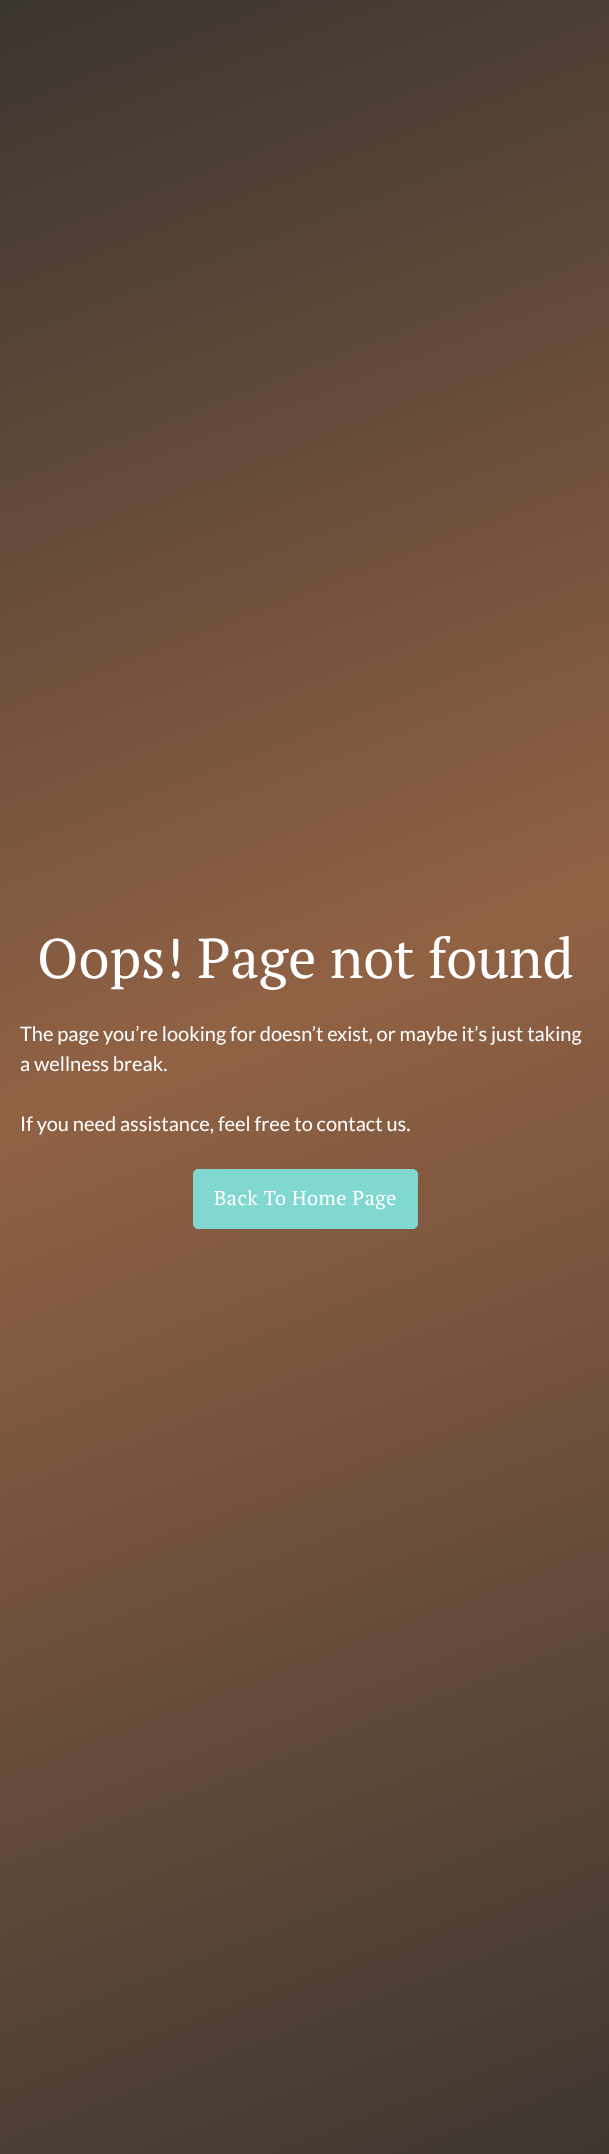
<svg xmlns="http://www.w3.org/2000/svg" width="609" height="2154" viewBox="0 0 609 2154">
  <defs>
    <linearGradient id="g1" gradientUnits="userSpaceOnUse" x1="-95" y1="36" x2="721" y2="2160"><stop offset="0" stop-color="#3b3530"/><stop offset="0.46" stop-color="#916244"/><stop offset="1" stop-color="#3b3530"/></linearGradient>
  </defs>
  <rect width="100%" height="100%" fill="#fff"/>
  <path d="M0 0h609v2154H0z" fill="url(#g1)"/>
  <rect x="193.5" y="1169.5" width="224" height="59" rx="4.5" fill="#81d8d0" stroke="#81d8d0"/>
  <text x="37" y="978" font-family="PT Serif" font-size="56" fill="#fff">Oops! Page not found</text>
  <g font-family="Lato" font-size="20" fill="#fff">
    <text x="20" y="1041">The page you’re looking for doesn’t exist, or maybe it’s just taking</text>
    <text x="20" y="1071">a wellness break.</text>
    <text x="20" y="1131">If you need assistance, feel free to contact us.</text>
  </g>
  <text x="214" y="1205" font-family="PT Serif" font-size="20" letter-spacing="0.5" fill="#fff">Back To Home Page</text>
</svg>
